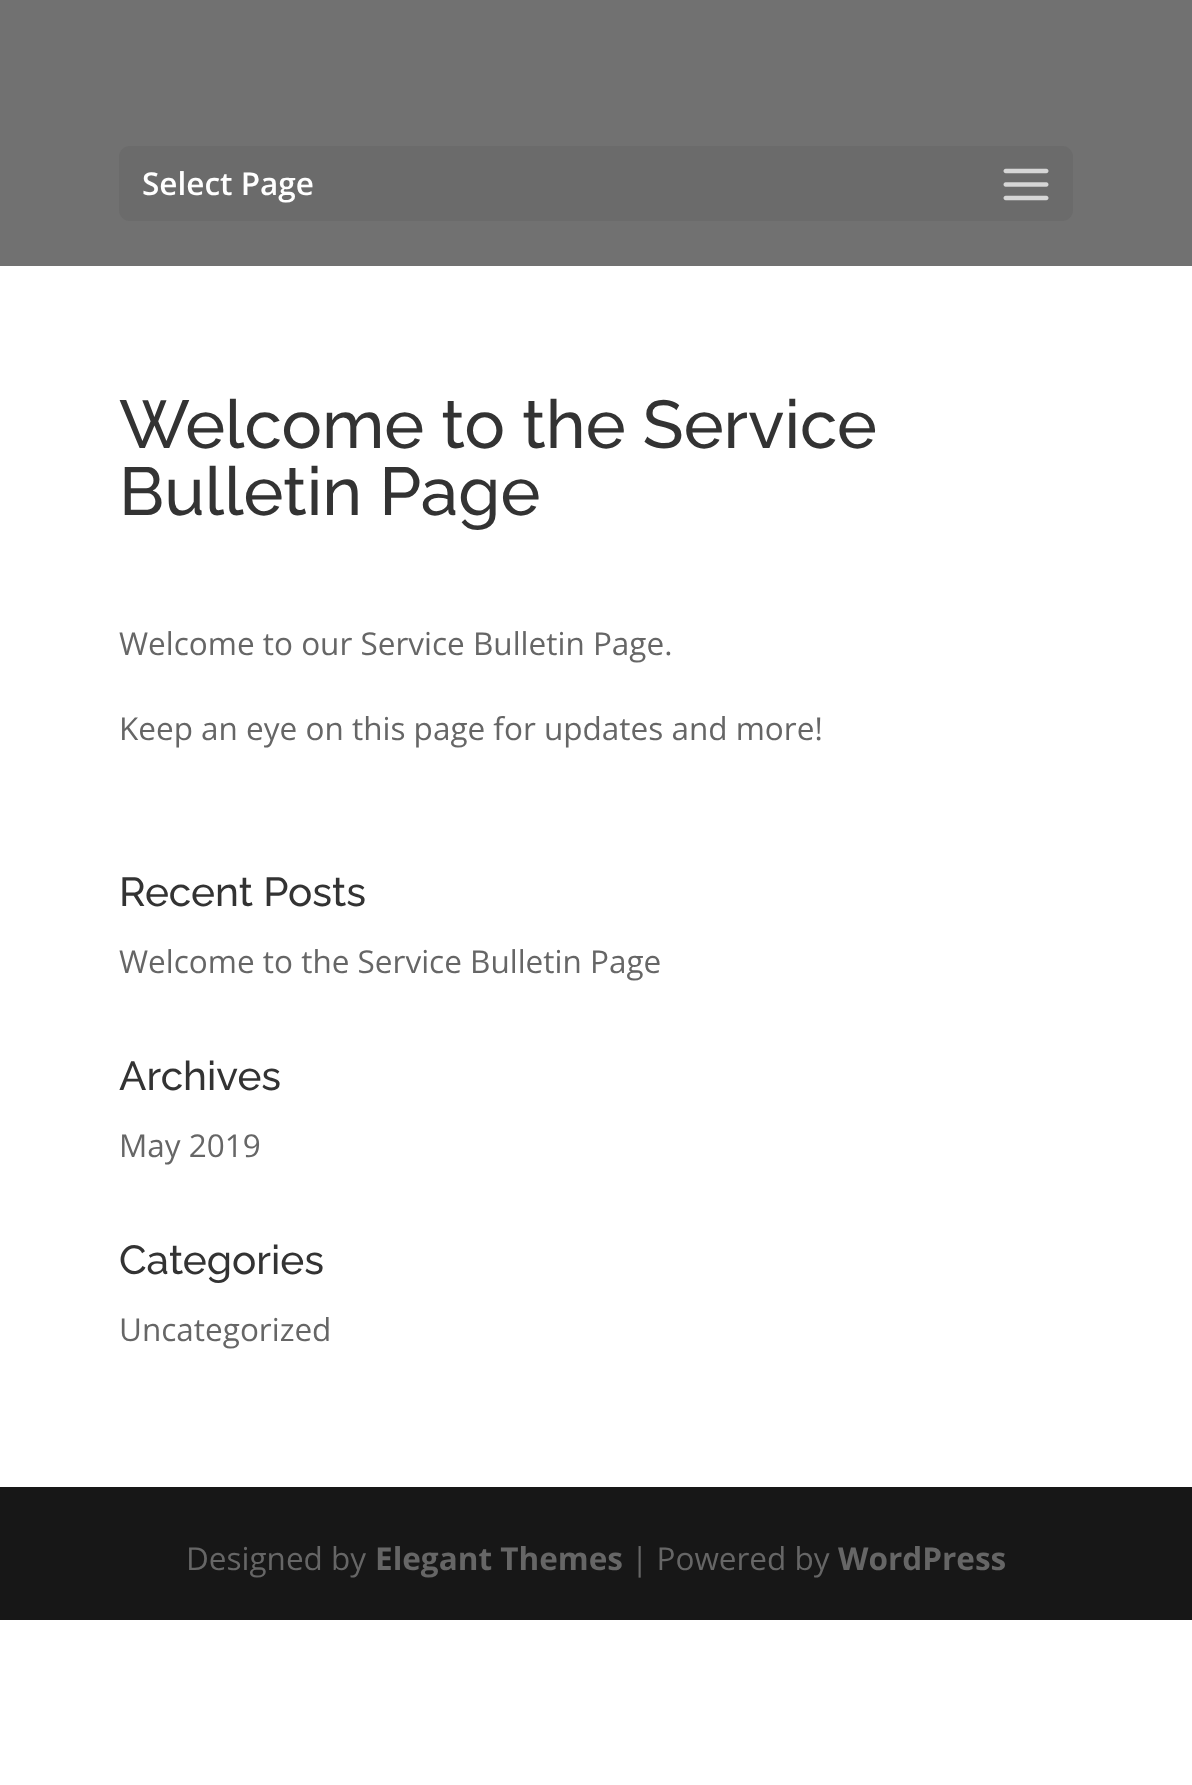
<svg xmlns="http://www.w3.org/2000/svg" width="1192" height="1785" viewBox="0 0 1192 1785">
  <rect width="100%" height="100%" fill="#fff"/>
  <path d="M0 0h1192v266H0z" fill="#717171"/>
  <rect x="119" y="146" width="954" height="75" rx="11" fill="#6b6b6b"/>
  <image x="1003" y="168" width="46" height="33" href="img/1.png"/>
  <path d="M0 1487h1192v133H0z" fill="#171717"/>
  <text x="142" y="195" font-family="Open Sans" font-size="31.5" font-weight="600" fill="#fff">Select Page</text>
  <g font-family="Raleway" font-size="67.5" font-weight="500" fill="#333">
    <text x="119" y="448">Welcome to the Service</text>
    <text x="119" y="515">Bulletin Page</text>
  </g>
  <g font-family="Open Sans" font-size="31.5" fill="#666">
    <text x="119" y="655">Welcome to our Service Bulletin Page.</text>
    <text x="119" y="740">Keep an eye on this page for updates and more!</text>
  </g>
  <text x="119" y="906" font-family="Raleway" font-size="40.5" font-weight="500" fill="#333">Recent Posts</text>
  <text x="119" y="973" font-family="Open Sans" font-size="31.5" fill="#666">Welcome to the Service Bulletin Page</text>
  <text x="119" y="1090" font-family="Raleway" font-size="40.5" font-weight="500" fill="#333">Archives</text>
  <text x="119" y="1157" font-family="Open Sans" font-size="31.5" fill="#666">May 2019</text>
  <text x="119" y="1274" font-family="Raleway" font-size="40.5" font-weight="500" fill="#333">Categories</text>
  <g font-family="Open Sans" font-size="31.5" fill="#666">
    <text x="119" y="1341">Uncategorized</text>
    <text x="186" y="1570">Designed by</text>
  </g>
  <text x="375" y="1570" font-family="Open Sans" font-size="31.5" font-weight="bold" fill="#666">Elegant Themes</text>
  <text x="631" y="1570" font-family="Open Sans" font-size="31.5" fill="#666">| Powered by</text>
  <text x="838" y="1570" font-family="Open Sans" font-size="31.5" font-weight="bold" fill="#666">WordPress</text>
</svg>
